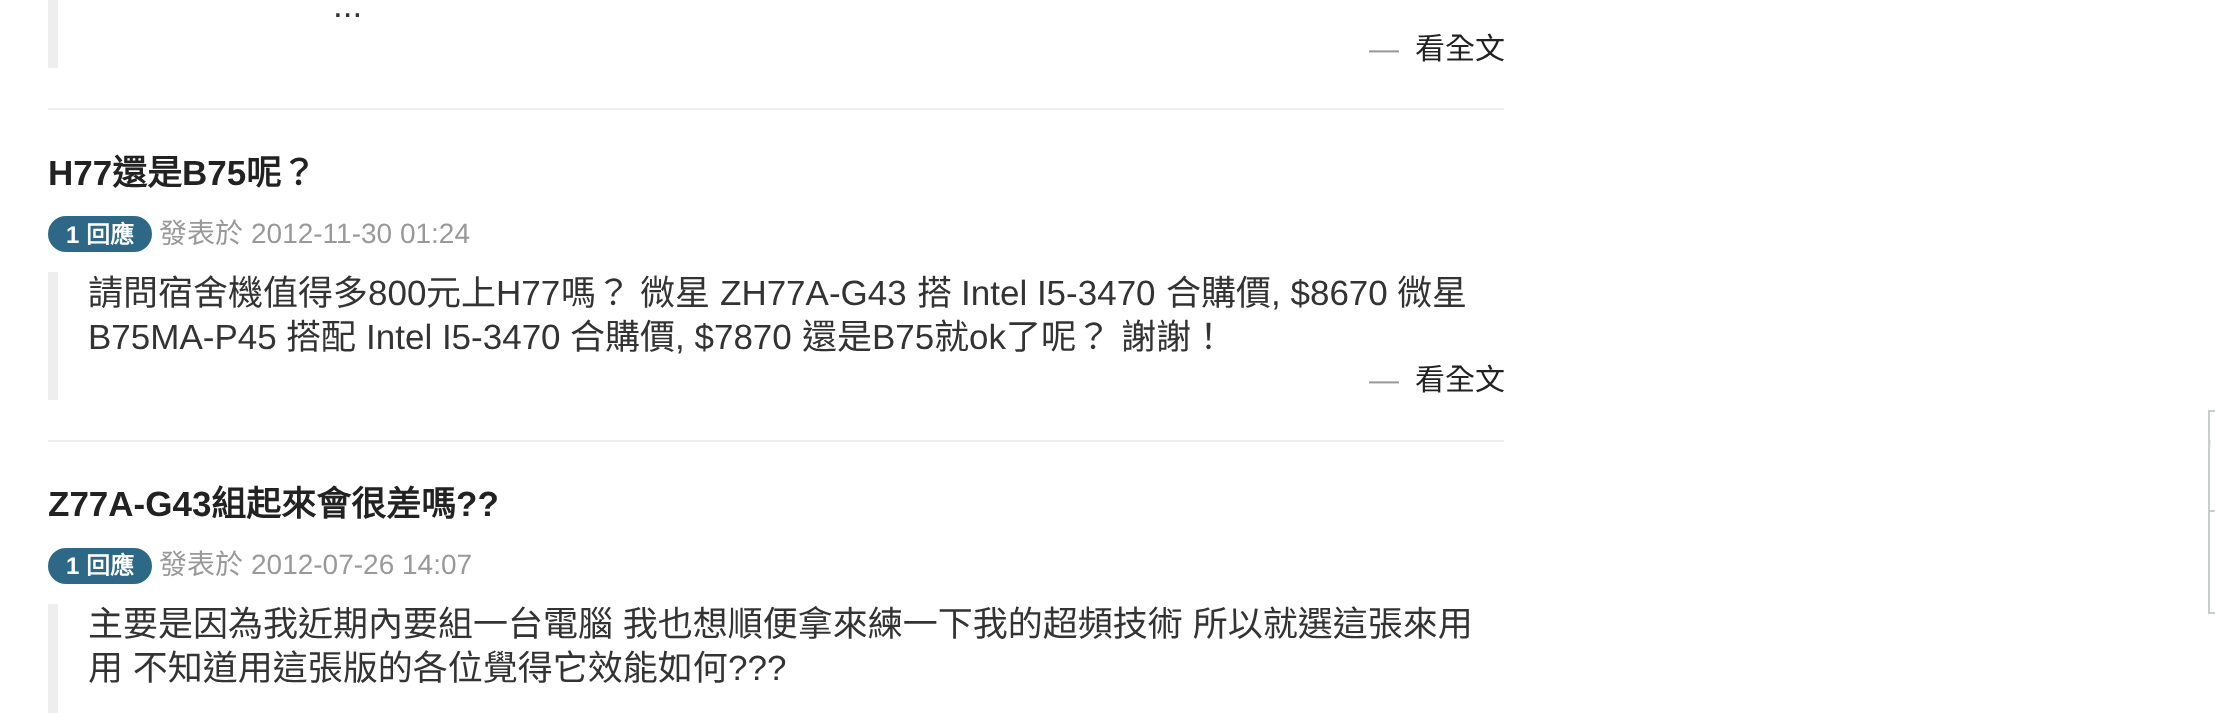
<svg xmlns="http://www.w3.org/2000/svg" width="2215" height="713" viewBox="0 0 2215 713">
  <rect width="100%" height="100%" fill="#fff"/>
  <path d="M48 0h10v68H48z" fill="#eee"/>
  <path d="M48 108h1456v2H48z" fill="#eee"/>
  <rect x="48" y="216" width="104" height="36" rx="18" fill="#2d6987"/>
  <path d="M48 272h10v128H48z" fill="#eee"/>
  <path d="M48 440h1456v2H48z" fill="#eee"/>
  <rect x="48" y="548" width="104" height="36" rx="18" fill="#2d6987"/>
  <path d="M48 604h10v109H48z" fill="#eee"/>
  <image x="2210" y="438" width="1" height="9" href="img/1.png"/>
  <path d="M2209 411h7v202H2209z" fill="none" stroke="#c7ced0" stroke-width="2"/>
  <path d="M2210 510h5v2H2210z" fill="#ccc"/>
  <text x="333" y="17" font-family="Liberation Sans" font-size="35" fill="#333">...</text>
  <text x="1369" y="59" font-family="Liberation Sans" font-size="30" fill="#999">—</text>
  <text x="1415" y="59" font-family="Noto Sans CJK TC" font-size="30" fill="#222">看全文</text>
  <text x="48" y="185" font-family="Liberation Sans" font-size="35" font-weight="bold" fill="#222">H77</text>
  <text x="112" y="185" font-family="Noto Sans CJK TC" font-size="35" font-weight="bold" fill="#222">還是</text>
  <text x="182" y="185" font-family="Liberation Sans" font-size="35" font-weight="bold" fill="#222">B75</text>
  <text x="246" y="185" font-family="Noto Sans CJK TC" font-size="35" font-weight="bold" fill="#222">呢？</text>
  <text x="66" y="243" font-family="Liberation Sans" font-size="24" font-weight="bold" fill="#fff">1</text>
  <text x="86" y="243" font-family="Noto Sans CJK TC" font-size="24" font-weight="bold" fill="#fff">回應</text>
  <text x="159" y="243" font-family="Noto Sans CJK TC" font-size="28" fill="#999">發表於</text>
  <text x="251" y="243" font-family="Liberation Sans" font-size="28" fill="#999">2012-11-30 01:24</text>
  <text x="88" y="305" font-family="Noto Sans CJK TC" font-size="35" fill="#333">請問宿舍機值得多</text>
  <text x="368" y="305" font-family="Liberation Sans" font-size="35" fill="#333">800</text>
  <text x="426" y="305" font-family="Noto Sans CJK TC" font-size="35" fill="#333">元上</text>
  <text x="496" y="305" font-family="Liberation Sans" font-size="35" fill="#333">H77</text>
  <g font-family="Noto Sans CJK TC" font-size="35" fill="#333">
    <text x="561" y="305">嗎？</text>
    <text x="640" y="305">微星</text>
  </g>
  <text x="720" y="305" font-family="Liberation Sans" font-size="35" fill="#333">ZH77A-G43</text>
  <text x="917" y="305" font-family="Noto Sans CJK TC" font-size="35" fill="#333">搭</text>
  <text x="961" y="305" font-family="Liberation Sans" font-size="35" fill="#333">Intel I5-3470</text>
  <text x="1166" y="305" font-family="Noto Sans CJK TC" font-size="35" fill="#333">合購價</text>
  <text x="1271" y="305" font-family="Liberation Sans" font-size="35" fill="#333">, $8670</text>
  <text x="1397" y="305" font-family="Noto Sans CJK TC" font-size="35" fill="#333">微星</text>
  <text x="88" y="349" font-family="Liberation Sans" font-size="35" fill="#333">B75MA-P45</text>
  <text x="286" y="349" font-family="Noto Sans CJK TC" font-size="35" fill="#333">搭配</text>
  <text x="366" y="349" font-family="Liberation Sans" font-size="35" fill="#333">Intel I5-3470</text>
  <text x="570" y="349" font-family="Noto Sans CJK TC" font-size="35" fill="#333">合購價</text>
  <text x="675" y="349" font-family="Liberation Sans" font-size="35" fill="#333">, $7870</text>
  <text x="802" y="349" font-family="Noto Sans CJK TC" font-size="35" fill="#333">還是</text>
  <text x="872" y="349" font-family="Liberation Sans" font-size="35" fill="#333">B75</text>
  <text x="934" y="349" font-family="Noto Sans CJK TC" font-size="35" fill="#333">就</text>
  <text x="969" y="349" font-family="Liberation Sans" font-size="35" fill="#333">ok</text>
  <g font-family="Noto Sans CJK TC" font-size="35" fill="#333">
    <text x="1006" y="349">了呢？</text>
    <text x="1121" y="349">謝謝！</text>
  </g>
  <text x="1369" y="390" font-family="Liberation Sans" font-size="30" fill="#999">—</text>
  <text x="1415" y="390" font-family="Noto Sans CJK TC" font-size="30" fill="#222">看全文</text>
  <text x="48" y="516" font-family="Liberation Sans" font-size="35" font-weight="bold" fill="#222">Z77A-G43</text>
  <text x="211" y="516" font-family="Noto Sans CJK TC" font-size="35" font-weight="bold" fill="#222">組起來會很差嗎</text>
  <text x="456" y="516" font-family="Liberation Sans" font-size="35" font-weight="bold" fill="#222">??</text>
  <text x="66" y="574" font-family="Liberation Sans" font-size="24" font-weight="bold" fill="#fff">1</text>
  <text x="86" y="574" font-family="Noto Sans CJK TC" font-size="24" font-weight="bold" fill="#fff">回應</text>
  <text x="159" y="574" font-family="Noto Sans CJK TC" font-size="28" fill="#999">發表於</text>
  <text x="251" y="574" font-family="Liberation Sans" font-size="28" fill="#999">2012-07-26 14:07</text>
  <g font-family="Noto Sans CJK TC" font-size="35" fill="#333">
    <text x="88" y="636" word-spacing="2">主要是因為我近期內要組一台電腦 我也想順便拿來練一下我的超頻技術 所以就選這張來用</text>
    <text x="88" y="680" word-spacing="2">用 不知道用這張版的各位覺得它效能如何</text>
  </g>
  <text x="728" y="680" font-family="Liberation Sans" font-size="35" fill="#333">???</text>
</svg>
